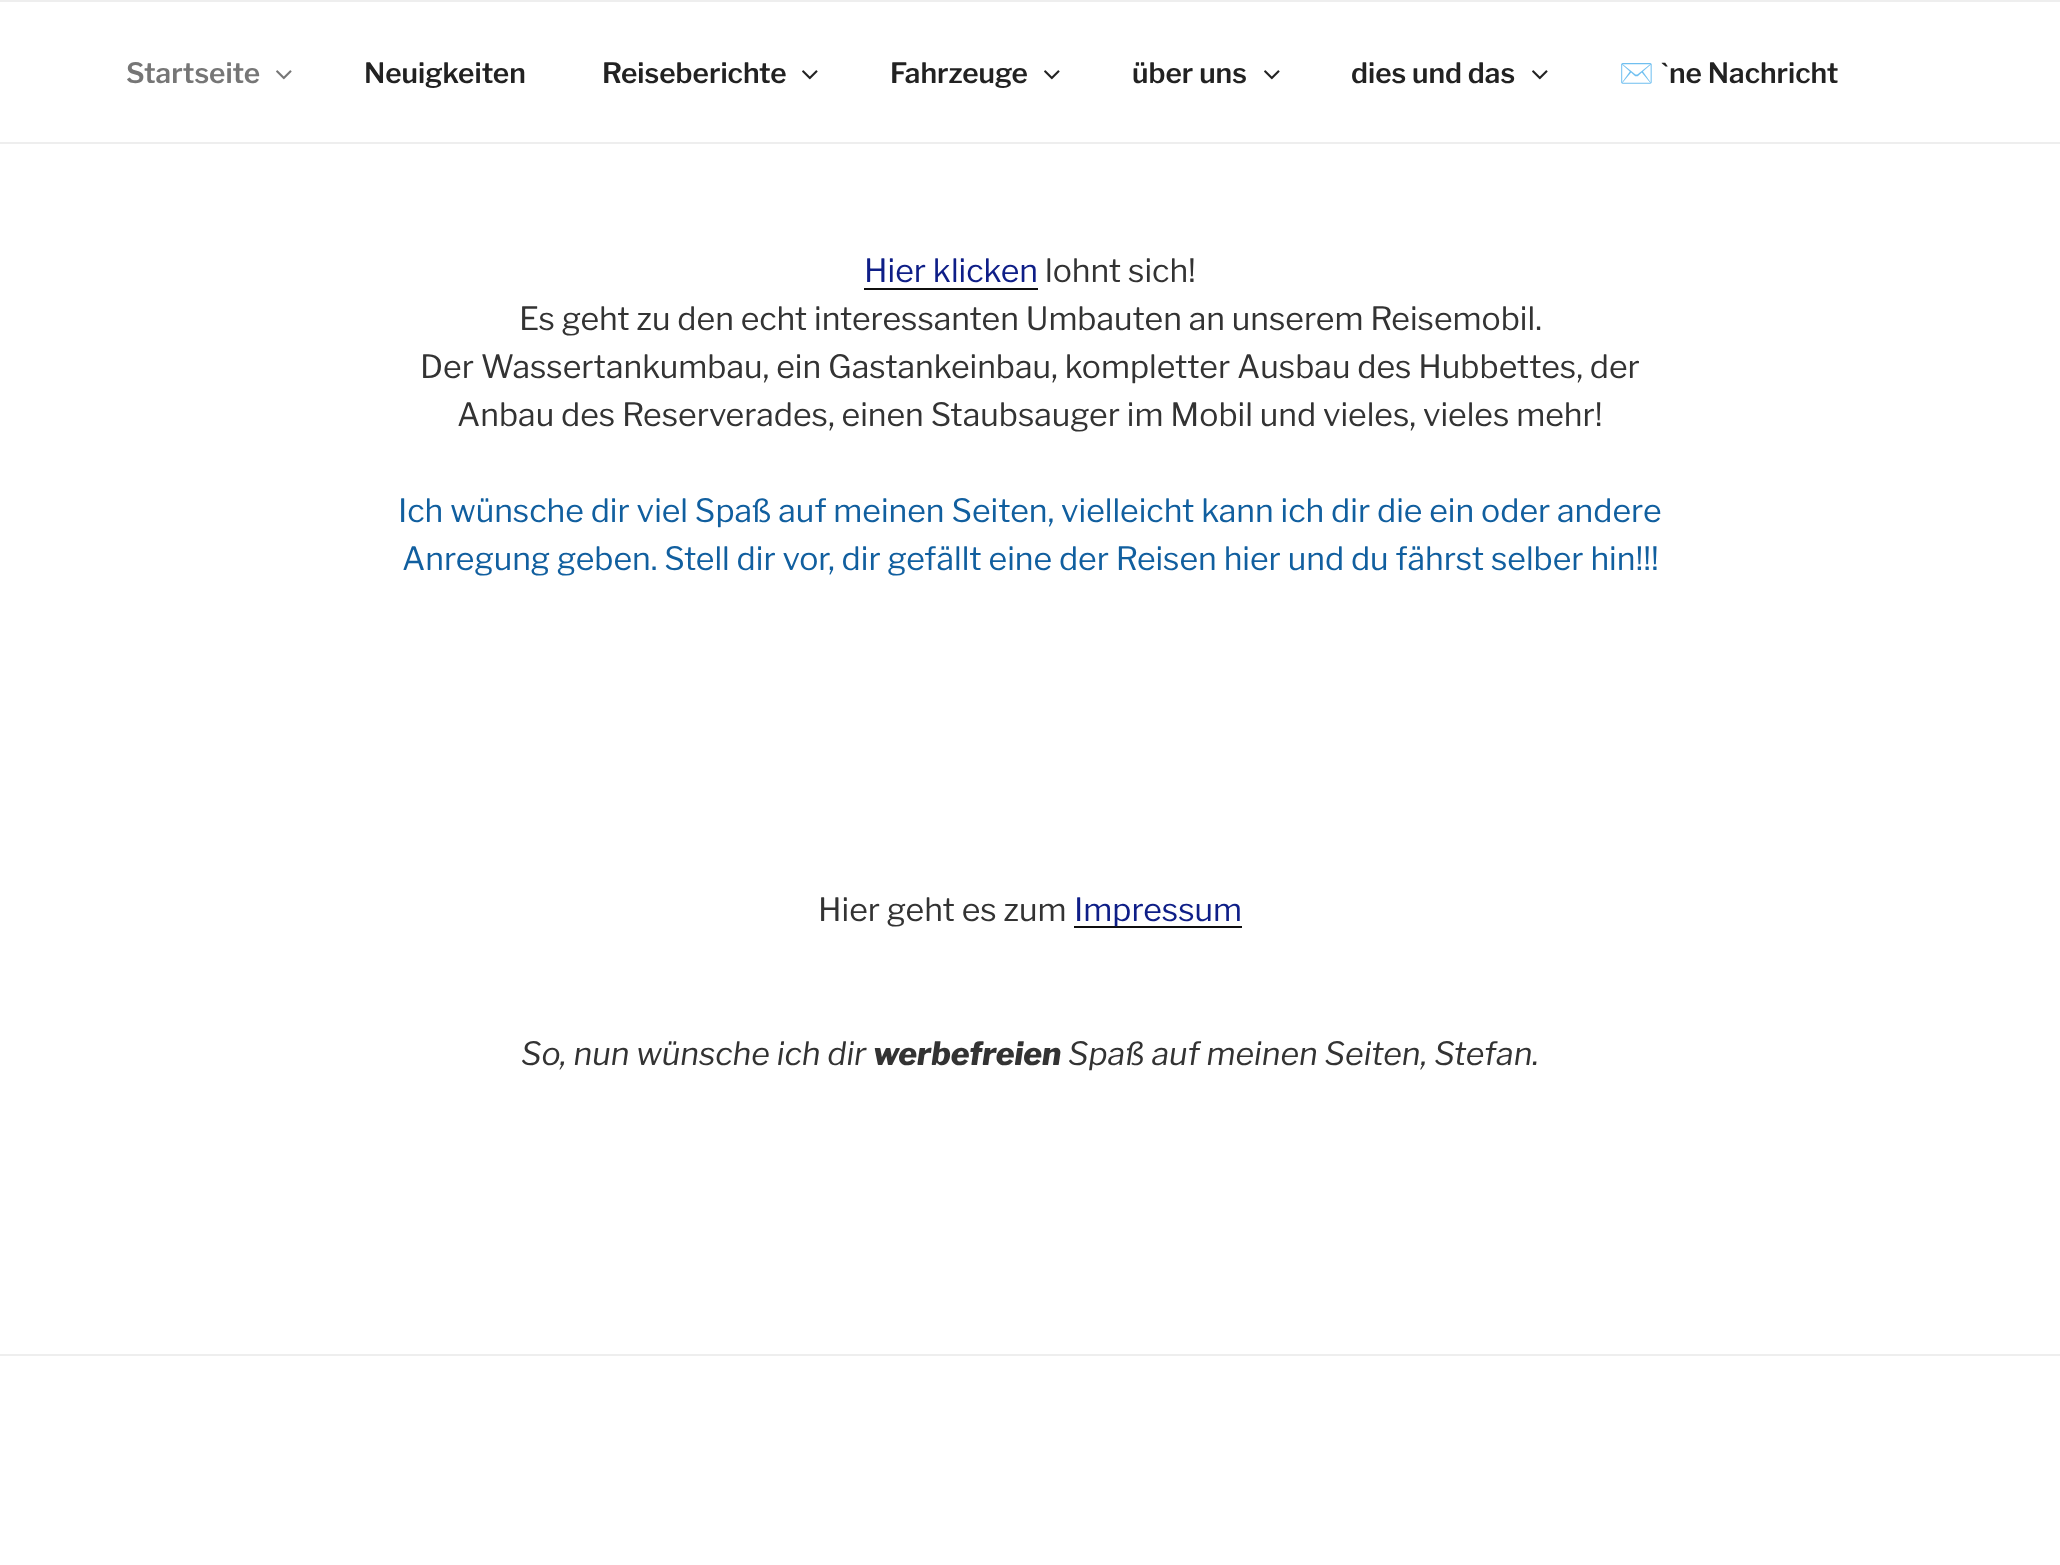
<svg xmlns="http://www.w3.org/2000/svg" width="2060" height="1565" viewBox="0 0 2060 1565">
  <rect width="100%" height="100%" fill="#fff"/>
  <path d="M0 0h2060v2H0z" fill="#eee"/>
  <path d="M0 142h2060v2H0z" fill="#eee"/>
  <image x="276" y="70" width="16" height="10" href="img/1.png"/>
  <image x="802" y="70" width="16" height="10" href="img/2.png"/>
  <image x="1044" y="70" width="16" height="10" href="img/2.png"/>
  <image x="1264" y="70" width="16" height="10" href="img/2.png"/>
  <image x="1532" y="70" width="16" height="10" href="img/2.png"/>
  <path d="M864 288h174v2H864z" fill="#0f0f0f"/>
  <path d="M1074 926h168v2H1074z" fill="#0f0f0f"/>
  <path d="M0 1354h2060v2H0z" fill="#eee"/>
  <text x="126" y="83" font-family="'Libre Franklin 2'" font-size="28" font-weight="100" fill="#767676">Startseite</text>
  <g font-family="'Libre Franklin 2'" font-size="28" font-weight="100" fill="#222">
    <text x="364" y="83">Neuigkeiten</text>
    <text x="602" y="83">Reiseberichte</text>
    <text x="890" y="83">Fahrzeuge</text>
    <text x="1132" y="83">über uns</text>
    <text x="1351" y="83">dies und das</text>
  </g>
  <text x="1619" y="83" font-family="Noto Color Emoji" font-size="28" font-weight="bold" fill="#222">✉️</text>
  <text x="1660" y="83" font-family="Liberation Sans" font-size="28" font-weight="bold" fill="#222">ˋ</text>
  <text x="1669" y="83" font-family="'Libre Franklin 2'" font-size="28" font-weight="100" fill="#222">ne Nachricht</text>
  <text x="864" y="282" font-family="Libre Franklin" font-size="32" font-weight="100" fill="#0e1e87">Hier klicken</text>
  <g font-family="Libre Franklin" font-size="32" font-weight="100" fill="#333">
    <text x="1045" y="282">lohnt sich!</text>
    <text x="519" y="330">Es geht zu den echt interessanten Umbauten an unserem Reisemobil.</text>
    <text x="420" y="378">Der Wassertankumbau, ein Gastankeinbau, kompletter Ausbau des Hubbettes, der</text>
    <text x="457" y="426">Anbau des Reserverades, einen Staubsauger im Mobil und vieles, vieles mehr!</text>
  </g>
  <g font-family="Libre Franklin" font-size="32" font-weight="100" fill="#115f9f">
    <text x="398" y="522">Ich wünsche dir viel Spaß auf meinen Seiten, vielleicht kann ich dir die ein oder andere</text>
    <text x="402" y="570">Anregung geben. Stell dir vor, dir gefällt eine der Reisen hier und du fährst selber hin!!!</text>
  </g>
  <text x="818" y="921" font-family="Libre Franklin" font-size="32" font-weight="100" fill="#333">Hier geht es zum</text>
  <text x="1074" y="921" font-family="Libre Franklin" font-size="32" font-weight="100" fill="#0e1e87">Impressum</text>
  <text x="521" y="1065" font-family="Libre Franklin" font-size="32" font-weight="100" font-style="italic" fill="#333">So, nun wünsche ich dir</text>
  <text x="873" y="1065" font-family="'Libre Franklin 2'" font-size="32" font-weight="100" font-style="italic" fill="#333">werbefreien</text>
  <text x="1068" y="1065" font-family="Libre Franklin" font-size="32" font-weight="100" font-style="italic" fill="#333">Spaß auf meinen Seiten, Stefan.</text>
</svg>
